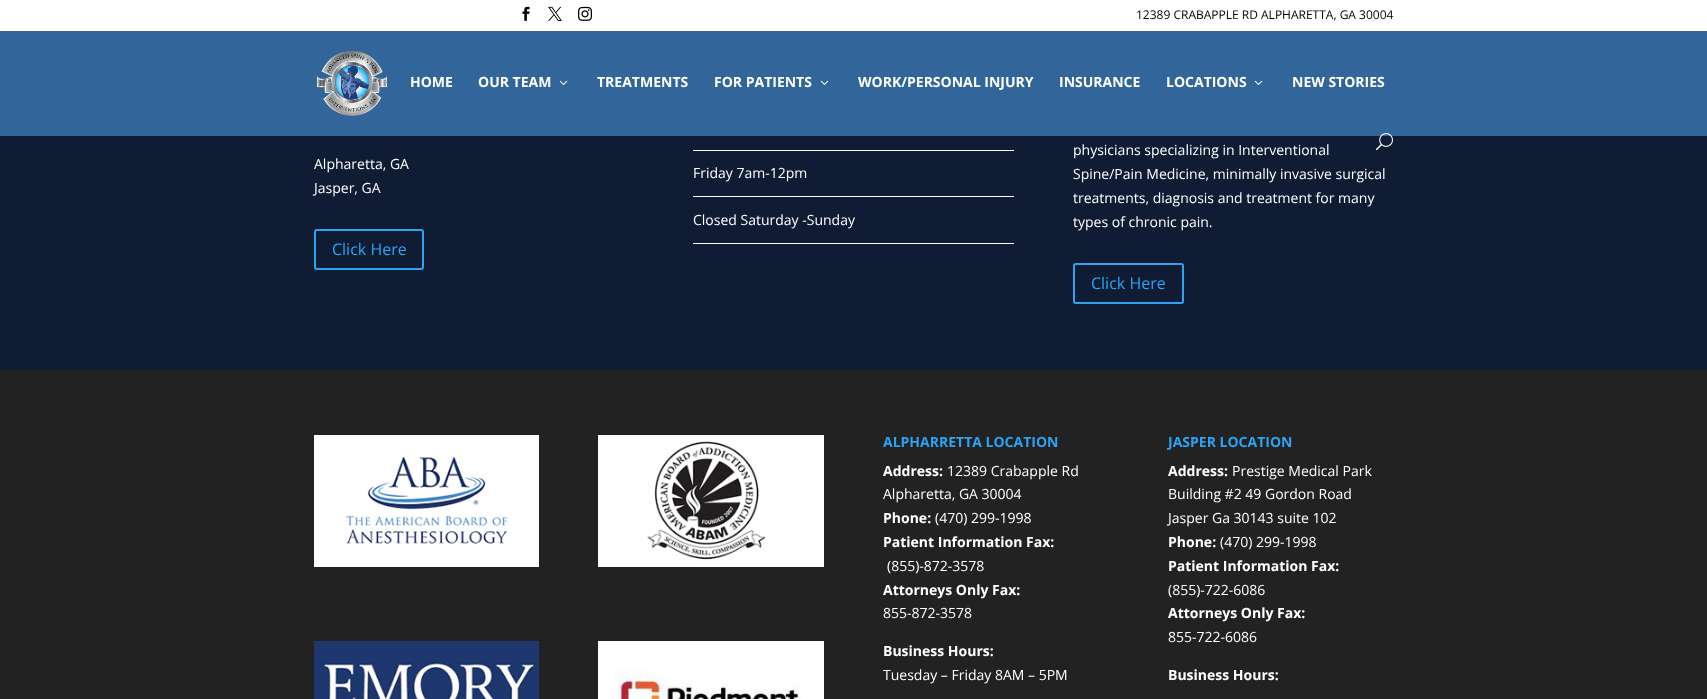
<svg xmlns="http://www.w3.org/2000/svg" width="1707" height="699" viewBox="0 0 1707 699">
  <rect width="100%" height="100%" fill="#222"/>
  <path d="M0 0h1707v31H0z" fill="#fff"/>
  <image x="522" y="6" width="8" height="15" href="img/1.png"/>
  <image x="548" y="6" width="14" height="15" href="img/2.png"/>
  <image x="578" y="6" width="14" height="15" href="img/3.png"/>
  <path d="M0 31h1707v105H0z" fill="#326599"/>
  <image x="317" y="51" width="70" height="65" href="img/4.png"/>
  <image x="559" y="80" width="9" height="5" href="img/5.png"/>
  <image x="820" y="80" width="9" height="5" href="img/5.png"/>
  <image x="1254" y="80" width="9" height="5" href="img/5.png"/>
  <path d="M0 136h1707v234H0z" fill="#0f1c34"/>
  <image x="1376" y="133" width="17" height="18" href="img/6.png"/>
  <rect x="315" y="230" width="108" height="39" rx="2" fill="none" stroke="#2ea3f2" stroke-width="2"/>
  <path d="M693 150h321v1H693z" fill="#fff"/>
  <path d="M693 196h321v1H693z" fill="#fff"/>
  <path d="M693 243h321v1H693z" fill="#fff"/>
  <rect x="1074" y="264" width="109" height="39" rx="2" fill="none" stroke="#2ea3f2" stroke-width="2"/>
  <image x="314" y="435" width="225" height="132" href="img/7.png"/>
  <image x="314" y="641" width="225" height="58" href="img/8.png"/>
  <image x="598" y="435" width="226" height="132" href="img/9.png"/>
  <image x="598" y="641" width="226" height="58" href="img/10.png"/>
  <text x="1136" y="19" font-family="Open Sans" font-size="12" fill="#000">12389 CRABAPPLE RD ALPHARETTA, GA 30004</text>
  <g font-family="Open Sans" font-size="14" font-weight="bold" fill="#fff">
    <text x="410" y="87">HOME</text>
    <text x="478" y="87">OUR TEAM</text>
    <text x="597" y="87">TREATMENTS</text>
    <text x="714" y="87">FOR PATIENTS</text>
    <text x="858" y="87">WORK/PERSONAL INJURY</text>
    <text x="1059" y="87">INSURANCE</text>
    <text x="1166" y="87">LOCATIONS</text>
    <text x="1292" y="87">NEW STORIES</text>
  </g>
  <g font-family="Open Sans" font-size="14" fill="#fff">
    <text x="314" y="169">Alpharetta, GA</text>
    <text x="314" y="193">Jasper, GA</text>
  </g>
  <text x="332" y="255" font-family="Open Sans" font-size="16" fill="#2ea3f2">Click Here</text>
  <g font-family="Open Sans" font-size="14" fill="#fff">
    <text x="693" y="178">Friday 7am-12pm</text>
    <text x="693" y="225">Closed Saturday -Sunday</text>
    <text x="1073" y="155">physicians specializing in Interventional</text>
    <text x="1073" y="179">Spine/Pain Medicine, minimally invasive surgical</text>
    <text x="1073" y="203">treatments, diagnosis and treatment for many</text>
    <text x="1073" y="227">types of chronic pain.</text>
  </g>
  <text x="1091" y="289" font-family="Open Sans" font-size="16" fill="#2ea3f2">Click Here</text>
  <text x="883" y="447" font-family="Open Sans" font-size="14" font-weight="bold" fill="#2ea3f2">ALPHARRETTA LOCATION</text>
  <text x="883" y="476" font-family="Open Sans" font-size="14" font-weight="bold" fill="#fff">Address:</text>
  <g font-family="Open Sans" font-size="14" fill="#fff">
    <text x="947" y="476">12389 Crabapple Rd</text>
    <text x="883" y="499">Alpharetta, GA 30004</text>
  </g>
  <text x="883" y="523" font-family="Open Sans" font-size="14" font-weight="bold" fill="#fff">Phone:</text>
  <text x="935" y="523" font-family="Open Sans" font-size="14" fill="#fff">(470) 299-1998</text>
  <text x="883" y="547" font-family="Open Sans" font-size="14" font-weight="bold" fill="#fff">Patient Information Fax:</text>
  <text x="887" y="571" font-family="Open Sans" font-size="14" fill="#fff">(855)-872-3578</text>
  <text x="883" y="595" font-family="Open Sans" font-size="14" font-weight="bold" fill="#fff">Attorneys Only Fax:</text>
  <text x="883" y="618" font-family="Open Sans" font-size="14" fill="#fff">855-872-3578</text>
  <text x="883" y="656" font-family="Open Sans" font-size="14" font-weight="bold" fill="#fff">Business Hours:</text>
  <text x="883" y="680" font-family="Open Sans" font-size="14" fill="#fff">Tuesday – Friday 8AM – 5PM</text>
  <text x="1168" y="447" font-family="Open Sans" font-size="14" font-weight="bold" fill="#2ea3f2">JASPER LOCATION</text>
  <text x="1168" y="476" font-family="Open Sans" font-size="14" font-weight="bold" fill="#fff">Address:</text>
  <g font-family="Open Sans" font-size="14" fill="#fff">
    <text x="1232" y="476">Prestige Medical Park</text>
    <text x="1168" y="499">Building #2 49 Gordon Road</text>
    <text x="1168" y="523">Jasper Ga 30143 suite 102</text>
  </g>
  <text x="1168" y="547" font-family="Open Sans" font-size="14" font-weight="bold" fill="#fff">Phone:</text>
  <text x="1220" y="547" font-family="Open Sans" font-size="14" fill="#fff">(470) 299-1998</text>
  <text x="1168" y="571" font-family="Open Sans" font-size="14" font-weight="bold" fill="#fff">Patient Information Fax:</text>
  <text x="1168" y="595" font-family="Open Sans" font-size="14" fill="#fff">(855)-722-6086</text>
  <text x="1168" y="618" font-family="Open Sans" font-size="14" font-weight="bold" fill="#fff">Attorneys Only Fax:</text>
  <text x="1168" y="642" font-family="Open Sans" font-size="14" fill="#fff">855-722-6086</text>
  <text x="1168" y="680" font-family="Open Sans" font-size="14" font-weight="bold" fill="#fff">Business Hours:</text>
</svg>
